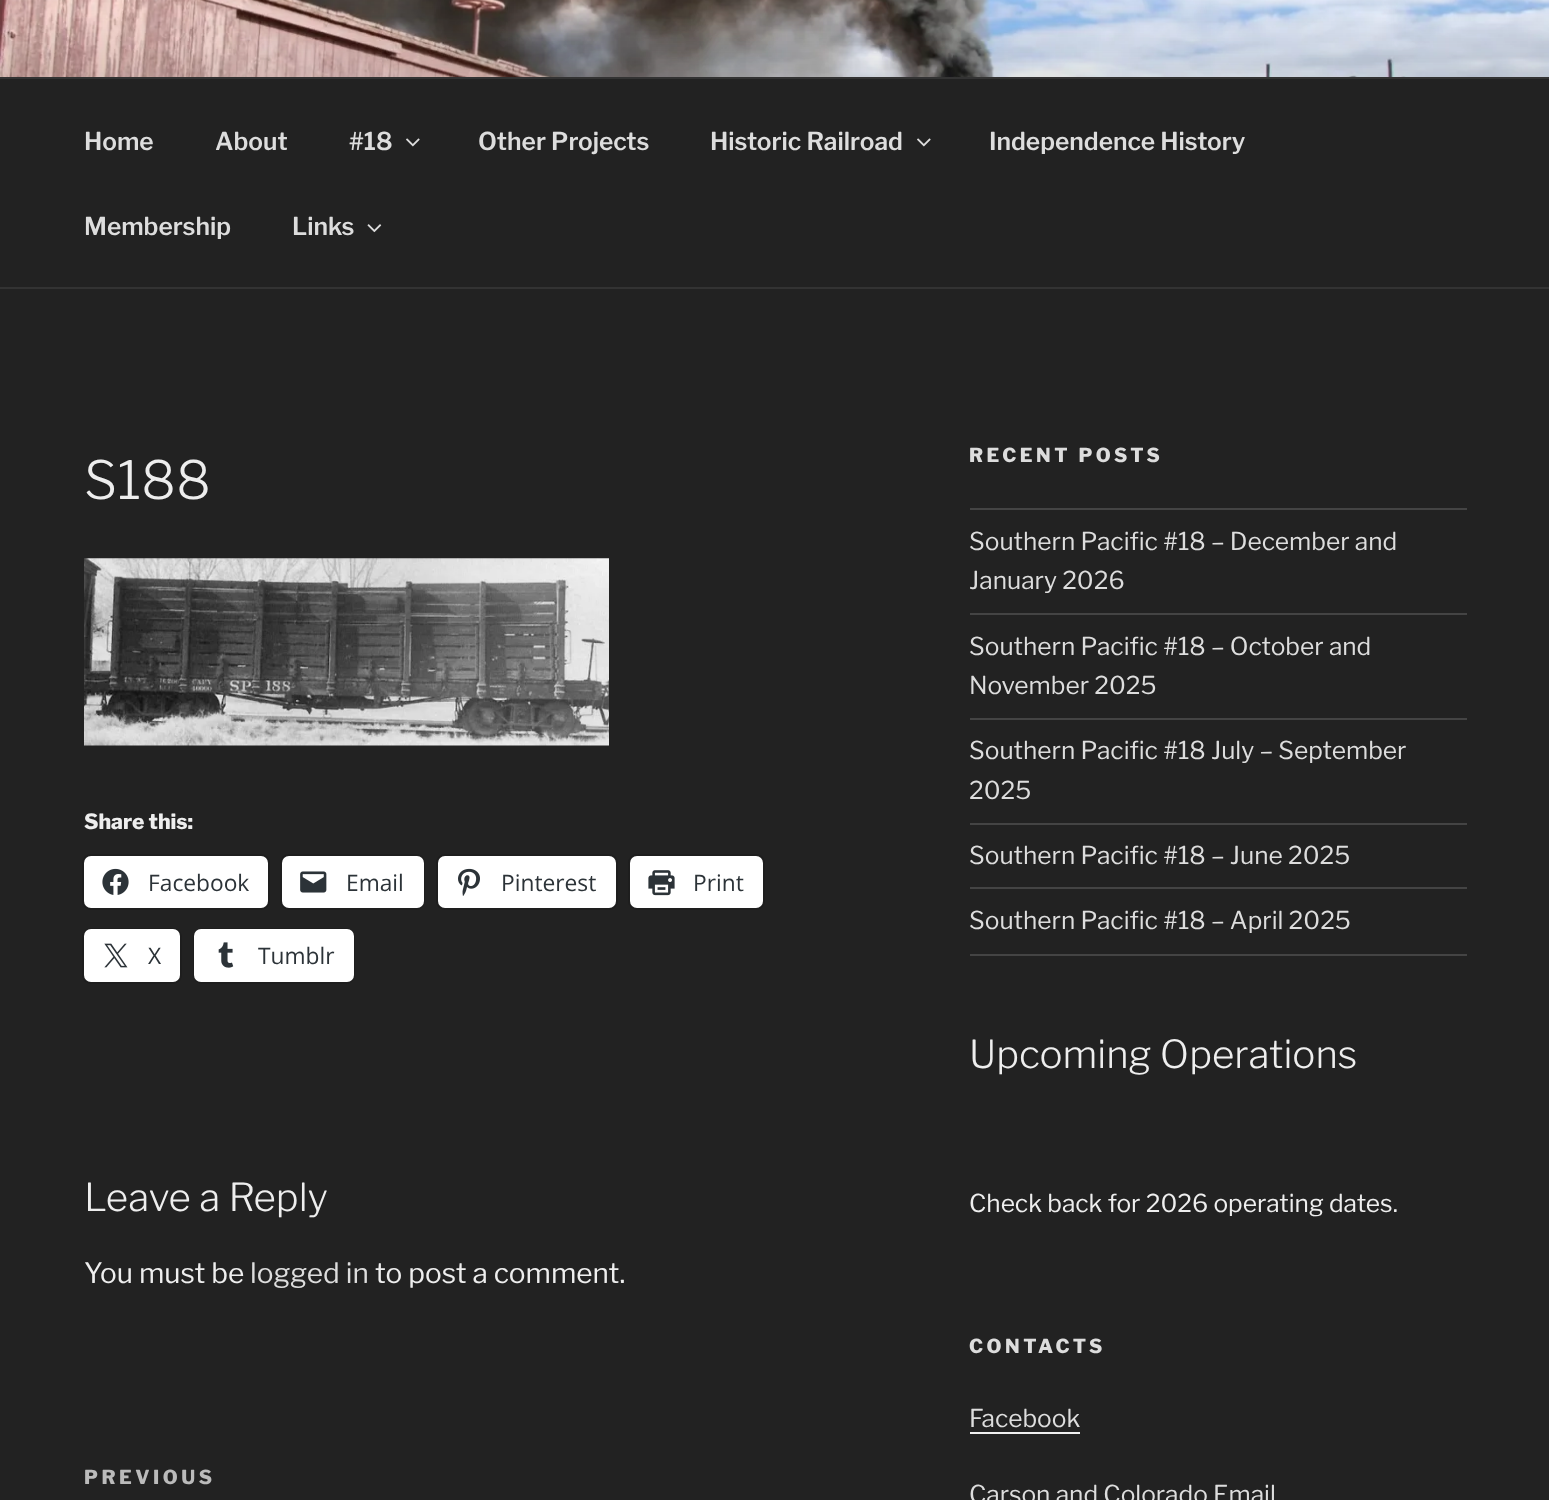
<svg xmlns="http://www.w3.org/2000/svg" width="1549" height="1500" viewBox="0 0 1549 1500">
  <rect width="100%" height="100%" fill="#222"/>
  <image x="0" y="0" width="1549" height="77" href="img/1.png"/>
  <path d="M0 77h1549v2H0z" fill="#333"/>
  <path d="M0 287h1549v2H0z" fill="#333"/>
  <image x="406" y="138" width="14" height="9" href="img/2.png"/>
  <image x="917" y="138" width="14" height="9" href="img/2.png"/>
  <image x="367" y="224" width="15" height="9" href="img/3.png"/>
  <image x="84" y="558" width="525" height="188" href="img/4.png"/>
  <rect x="83" y="855" width="186" height="54" rx="8" fill="none" stroke="#1e1e1e" stroke-width="2"/>
  <rect x="84" y="856" width="184" height="52" rx="7" fill="#fff"/>
  <image x="102" y="868" width="27" height="27" href="img/5.png"/>
  <rect x="281" y="855" width="143" height="54" rx="8" fill="none" stroke="#1e1e1e" stroke-width="2"/>
  <rect x="282" y="856" width="142" height="52" rx="7" fill="#fff"/>
  <image x="300" y="871" width="27" height="22" href="img/6.png"/>
  <rect x="437" y="855" width="180" height="54" rx="8" fill="none" stroke="#1e1e1e" stroke-width="2"/>
  <rect x="438" y="856" width="178" height="52" rx="7" fill="#fff"/>
  <image x="458" y="868" width="22" height="28" href="img/7.png"/>
  <rect x="629" y="855" width="135" height="54" rx="8" fill="none" stroke="#1e1e1e" stroke-width="2"/>
  <rect x="630" y="856" width="133" height="52" rx="7" fill="#fff"/>
  <image x="648" y="870" width="27" height="26" href="img/8.png"/>
  <rect x="83" y="929" width="98" height="54" rx="8" fill="none" stroke="#1e1e1e" stroke-width="2"/>
  <rect x="84" y="929" width="96" height="53" rx="7" fill="#fff"/>
  <image x="104" y="943" width="24" height="25" href="img/9.png"/>
  <rect x="194" y="929" width="160" height="54" rx="8" fill="none" stroke="#1e1e1e" stroke-width="2"/>
  <rect x="194" y="929" width="160" height="53" rx="7" fill="#fff"/>
  <image x="218" y="942" width="16" height="26" href="img/10.png"/>
  <path d="M970 508h497v2H970z" fill="#444"/>
  <path d="M970 613h497v2H970z" fill="#444"/>
  <path d="M970 718h497v2H970z" fill="#444"/>
  <path d="M970 823h497v2H970z" fill="#444"/>
  <path d="M970 887h497v2H970z" fill="#444"/>
  <path d="M970 954h497v2H970z" fill="#444"/>
  <path d="M970 1432h110v2H970z" fill="#f0f0f0"/>
  <g font-family="'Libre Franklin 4'" font-size="24.5" font-weight="100" fill="#ddd">
    <text x="84" y="150">Home</text>
    <text x="215" y="150">About</text>
    <text x="349" y="150">#18</text>
    <text x="478" y="150">Other Projects</text>
    <text x="710" y="150">Historic Railroad</text>
    <text x="989" y="150">Independence History</text>
    <text x="84" y="235">Membership</text>
    <text x="292" y="235">Links</text>
  </g>
  <text x="84" y="499" font-family="'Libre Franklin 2'" font-size="52.5" font-weight="100" fill="#eee">S188</text>
  <text x="84" y="829" font-family="Libre Franklin" font-size="21" font-weight="100" fill="#eee">Share this:</text>
  <g font-family="Open Sans" font-size="22.75" fill="#2c3338">
    <text x="148" y="891">Facebook</text>
    <text x="346" y="891">Email</text>
    <text x="501" y="891">Pinterest</text>
    <text x="693" y="891">Print</text>
    <text x="148" y="964">X</text>
    <text x="258" y="964">Tumblr</text>
  </g>
  <text x="84" y="1211" font-family="'Libre Franklin 2'" font-size="38.5" font-weight="100" fill="#eee">Leave a Reply</text>
  <text x="84" y="1283" font-family="'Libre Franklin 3'" font-size="28" font-weight="100" fill="#eee">You must be</text>
  <text x="250" y="1283" font-family="'Libre Franklin 3'" font-size="28" font-weight="100" fill="#ddd">logged in</text>
  <text x="375" y="1283" font-family="'Libre Franklin 3'" font-size="28" font-weight="100" fill="#eee">to post a comment.</text>
  <text x="84" y="1484" font-family="Libre Franklin" font-size="19.25" font-weight="100" letter-spacing="3.5" fill="#bbb">PREVIOUS</text>
  <text x="969" y="462" font-family="Libre Franklin" font-size="19.25" font-weight="100" letter-spacing="3.5" fill="#ddd">RECENT POSTS</text>
  <g font-family="'Libre Franklin 3'" font-size="24.5" font-weight="100" fill="#ddd">
    <text x="969" y="550">Southern Pacific #18 – December and</text>
    <text x="969" y="589">January 2026</text>
    <text x="969" y="655">Southern Pacific #18 – October and</text>
    <text x="969" y="694">November 2025</text>
    <text x="969" y="759">Southern Pacific #18 July – September</text>
    <text x="969" y="799">2025</text>
    <text x="969" y="864">Southern Pacific #18 – June 2025</text>
    <text x="969" y="929">Southern Pacific #18 – April 2025</text>
  </g>
  <text x="969" y="1068" font-family="'Libre Franklin 2'" font-size="38.5" font-weight="100" fill="#eee">Upcoming Operations</text>
  <text x="969" y="1212" font-family="'Libre Franklin 3'" font-size="24.5" font-weight="100" fill="#eee">Check back for 2026 operating dates.</text>
  <text x="969" y="1353" font-family="Libre Franklin" font-size="19.25" font-weight="100" letter-spacing="3.5" fill="#ddd">CONTACTS</text>
  <g font-family="'Libre Franklin 3'" font-size="24.5" font-weight="100" fill="#ddd">
    <text x="969" y="1427">Facebook</text>
    <text x="969" y="1503">Carson and Colorado Email</text>
  </g>
</svg>
